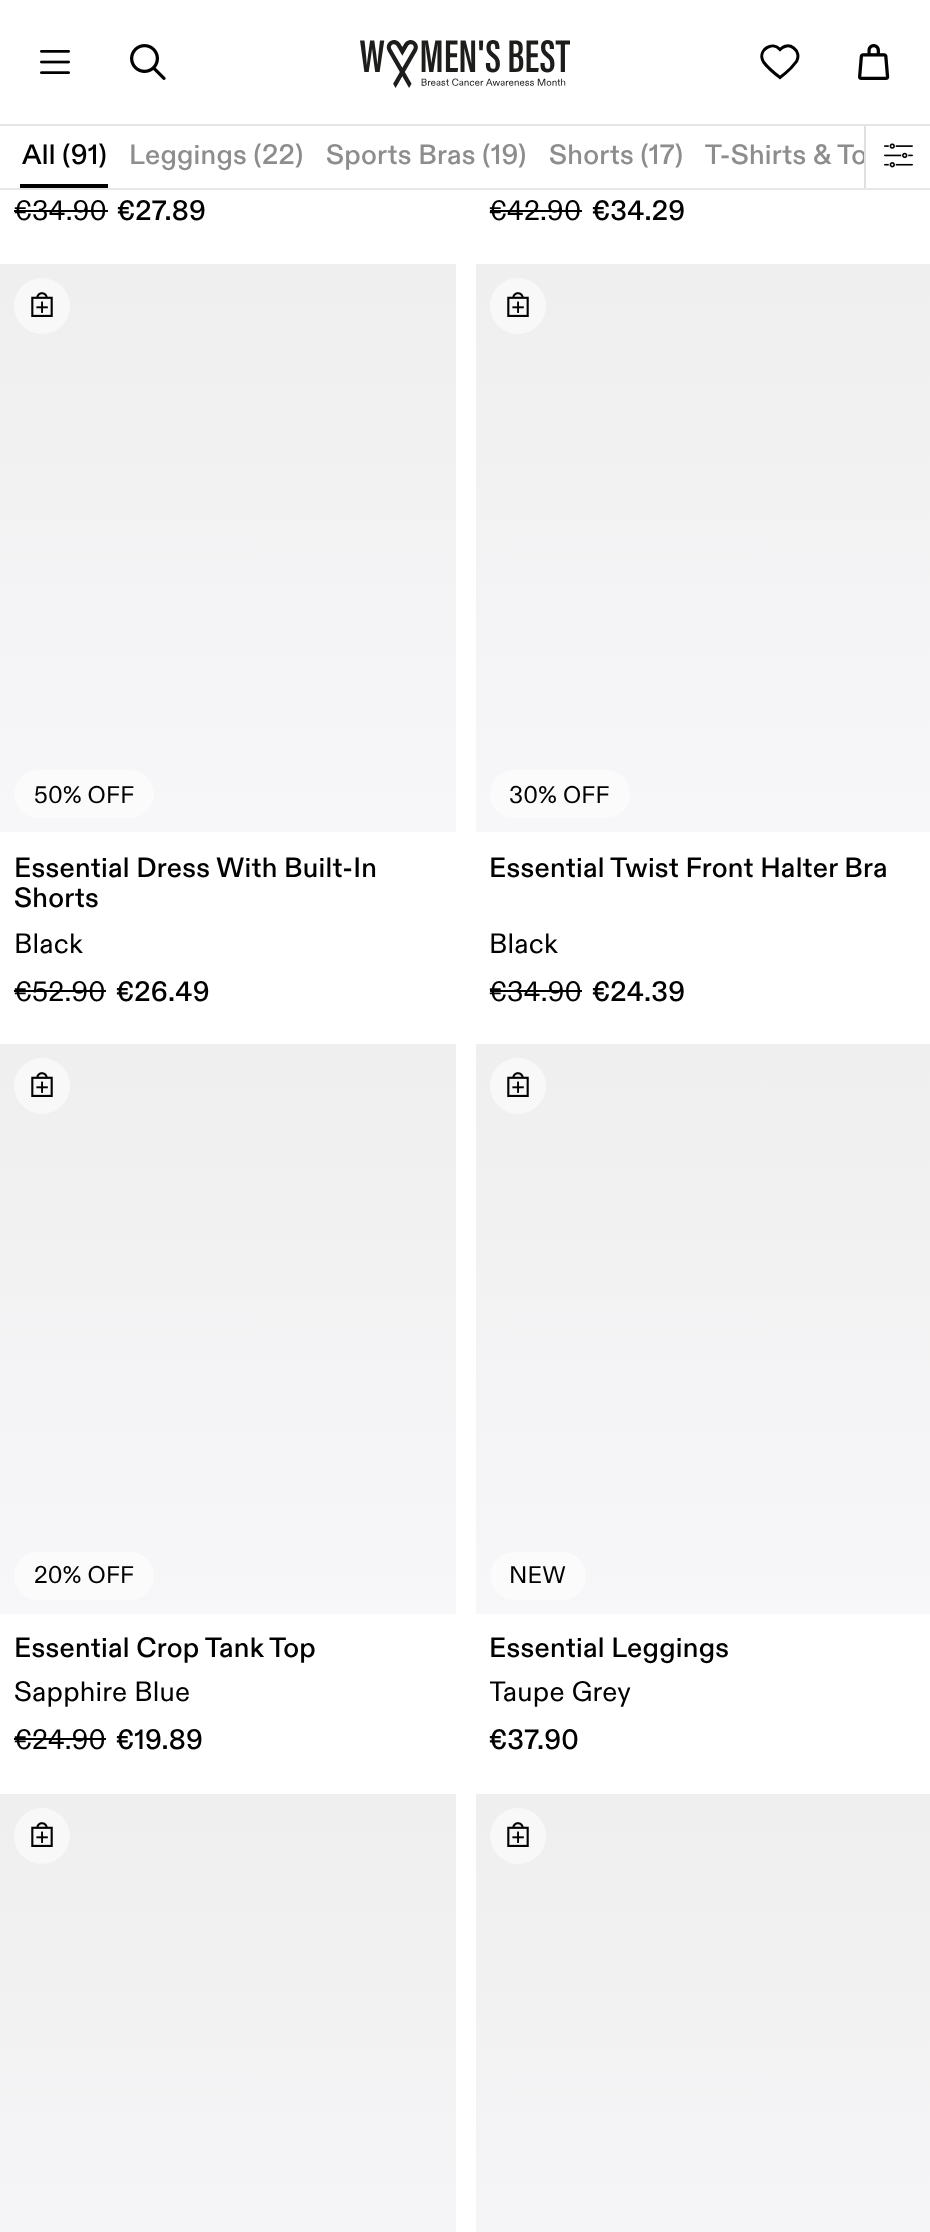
<svg xmlns="http://www.w3.org/2000/svg" width="930" height="2232" viewBox="0 0 930 2232">
  <defs>
    <linearGradient id="g1" gradientUnits="userSpaceOnUse" x1="228" y1="832" x2="228" y2="264"><stop offset="0" stop-color="#f7f6f9"/><stop offset="1" stop-color="#efefef"/></linearGradient>
    <linearGradient id="g2" gradientUnits="userSpaceOnUse" x1="703" y1="832" x2="703" y2="264"><stop offset="0" stop-color="#f7f6f9"/><stop offset="1" stop-color="#efefef"/></linearGradient>
    <linearGradient id="g3" gradientUnits="userSpaceOnUse" x1="228" y1="1614" x2="228" y2="1044"><stop offset="0" stop-color="#f7f6f9"/><stop offset="1" stop-color="#efefef"/></linearGradient>
    <linearGradient id="g4" gradientUnits="userSpaceOnUse" x1="703" y1="1614" x2="703" y2="1044"><stop offset="0" stop-color="#f7f6f9"/><stop offset="1" stop-color="#efefef"/></linearGradient>
    <linearGradient id="g5" gradientUnits="userSpaceOnUse" x1="228" y1="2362" x2="228" y2="1794"><stop offset="0" stop-color="#f7f6f9"/><stop offset="1" stop-color="#efefef"/></linearGradient>
    <linearGradient id="g6" gradientUnits="userSpaceOnUse" x1="703" y1="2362" x2="703" y2="1794"><stop offset="0" stop-color="#f7f6f9"/><stop offset="1" stop-color="#efefef"/></linearGradient>
    <clipPath id="clip1"><path d="M704 140h160v34H704z"/></clipPath>
    <clipPath id="clip2"><path d="M490 1678h426v34H490z"/></clipPath>
  </defs>
  <rect width="100%" height="100%" fill="#fff"/>
  <path d="M0 124h930v2H0z" fill="#e5e5e5"/>
  <image x="40" y="50" width="30" height="24" href="img/1.png"/>
  <image x="130" y="44" width="36" height="36" href="img/2.png"/>
  <image x="360" y="40" width="210" height="48" href="img/3.png"/>
  <path d="M780 49.5C772.5 41 758.5 49.5 762.5 60L763.5 62C768 68 774 73 780 77.5C784 74.5 787.5 71.5 791 68L796.5 61.5C802.5 51 788.5 40 780 49.5Z" fill="none" stroke="#000" stroke-width="3"/>
  <image x="858" y="44" width="32" height="36" href="img/4.png"/>
  <path d="M0 188h930v2H0z" fill="#e7e7e7"/>
  <path d="M864 126h2v62H864z" fill="#e0e0e0"/>
  <image x="884" y="143" width="29" height="25" href="img/5.png"/>
  <path d="M20 184h88v4H20z" fill="#000"/>
  <path d="M14 210h94v2H14z" fill="#000"/>
  <path d="M490 210h92v2H490z" fill="#000"/>
  <path d="M0 264h456v568H0z" fill="url(#g1)"/>
  <circle cx="42" cy="306" r="28" fill="#f8f8f8"/>
  <image x="31" y="292" width="22" height="25" href="img/6.png"/>
  <rect x="14" y="770" width="140" height="48" rx="24" fill="#fbfbfc"/>
  <path d="M14 990h92v2H14z" fill="#000"/>
  <path d="M476 264h454v568H476z" fill="url(#g2)"/>
  <circle cx="518" cy="306" r="28" fill="#f8f8f8"/>
  <image x="507" y="292" width="22" height="25" href="img/6.png"/>
  <rect x="490" y="770" width="140" height="48" rx="24" fill="#fbfbfc"/>
  <path d="M490 990h92v2H490z" fill="#000"/>
  <path d="M0 1044h456v570H0z" fill="url(#g3)"/>
  <circle cx="42" cy="1086" r="28" fill="#f8f8f8"/>
  <image x="31" y="1072" width="22" height="25" href="img/6.png"/>
  <rect x="14" y="1552" width="140" height="48" rx="24" fill="#fbfbfc"/>
  <path d="M14 1738h92v2H14z" fill="#000"/>
  <path d="M476 1044h454v570H476z" fill="url(#g4)"/>
  <circle cx="518" cy="1086" r="28" fill="#f8f8f8"/>
  <image x="507" y="1072" width="22" height="25" href="img/6.png"/>
  <rect x="490" y="1552" width="96" height="48" rx="24" fill="#fbfbfc"/>
  <path d="M0 1794h456v438H0z" fill="url(#g5)"/>
  <circle cx="42" cy="1836" r="28" fill="#f8f8f8"/>
  <image x="31" y="1822" width="22" height="25" href="img/6.png"/>
  <path d="M476 1794h454v438H476z" fill="url(#g6)"/>
  <circle cx="518" cy="1836" r="28" fill="#f8f8f8"/>
  <image x="507" y="1822" width="22" height="25" href="img/6.png"/>
  <text x="22" y="164" font-family="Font" font-size="28" font-weight="500" letter-spacing="0.25" fill="#000">All (91)</text>
  <g font-family="Font" font-size="28" font-weight="500" letter-spacing="0.25" fill="#8d8d8d">
    <text x="129" y="164">Leggings (22)</text>
    <text x="326" y="164">Sports Bras (19)</text>
    <text x="549" y="164">Shorts (17)</text>
  </g>
  <g clip-path="url(#clip1)">
    <text x="705" y="164" font-family="Font" font-size="28" font-weight="500" letter-spacing="0.25" fill="#8d8d8d">T-Shirts &amp; To</text>
  </g>
  <text x="14" y="220" font-family="Font" font-size="28" letter-spacing="0.25" fill="#000">€34.90</text>
  <text x="117" y="220" font-family="Font" font-size="28" font-weight="500" letter-spacing="0.25" fill="#000">€27.89</text>
  <text x="489" y="220" font-family="Font" font-size="28" letter-spacing="0.25" fill="#000">€42.90</text>
  <text x="592" y="220" font-family="Font" font-size="28" font-weight="500" letter-spacing="0.25" fill="#000">€34.29</text>
  <text x="34" y="803" font-family="Font" font-size="24" letter-spacing="0.25" fill="#000">50% OFF</text>
  <g font-family="Font" font-size="28" font-weight="500" letter-spacing="0.25" fill="#000">
    <text x="14" y="877">Essential Dress With Built-In</text>
    <text x="14" y="907">Shorts</text>
  </g>
  <g font-family="Font" font-size="28" letter-spacing="0.25" fill="#000">
    <text x="14" y="953">Black</text>
    <text x="14" y="1001">€52.90</text>
  </g>
  <text x="116" y="1001" font-family="Font" font-size="28" font-weight="500" letter-spacing="0.25" fill="#000">€26.49</text>
  <text x="509" y="803" font-family="Font" font-size="24" letter-spacing="0.25" fill="#000">30% OFF</text>
  <text x="489" y="877" font-family="Font" font-size="28" font-weight="500" letter-spacing="0.25" fill="#000">Essential Twist Front Halter Bra</text>
  <g font-family="Font" font-size="28" letter-spacing="0.25" fill="#000">
    <text x="489" y="953">Black</text>
    <text x="489" y="1001">€34.90</text>
  </g>
  <text x="592" y="1001" font-family="Font" font-size="28" font-weight="500" letter-spacing="0.25" fill="#000">€24.39</text>
  <text x="34" y="1583" font-family="Font" font-size="24" letter-spacing="0.25" fill="#000">20% OFF</text>
  <text x="14" y="1657" font-family="Font" font-size="28" font-weight="500" letter-spacing="0.25" fill="#000">Essential Crop Tank Top</text>
  <g font-family="Font" font-size="28" letter-spacing="0.25" fill="#000">
    <text x="14" y="1701">Sapphire Blue</text>
    <text x="14" y="1749">€24.90</text>
  </g>
  <text x="116" y="1749" font-family="Font" font-size="28" font-weight="500" letter-spacing="0.25" fill="#000">€19.89</text>
  <text x="509" y="1583" font-family="Font" font-size="24" letter-spacing="0.25" fill="#000">NEW</text>
  <text x="489" y="1657" font-family="Font" font-size="28" font-weight="500" letter-spacing="0.25" fill="#000">Essential Leggings</text>
  <g clip-path="url(#clip2)">
    <text x="489" y="1701" font-family="Font" font-size="28" letter-spacing="0.25" fill="#000">Taupe Grey</text>
  </g>
  <text x="489" y="1749" font-family="Font" font-size="28" font-weight="500" letter-spacing="0.25" fill="#000">€37.90</text>
</svg>
